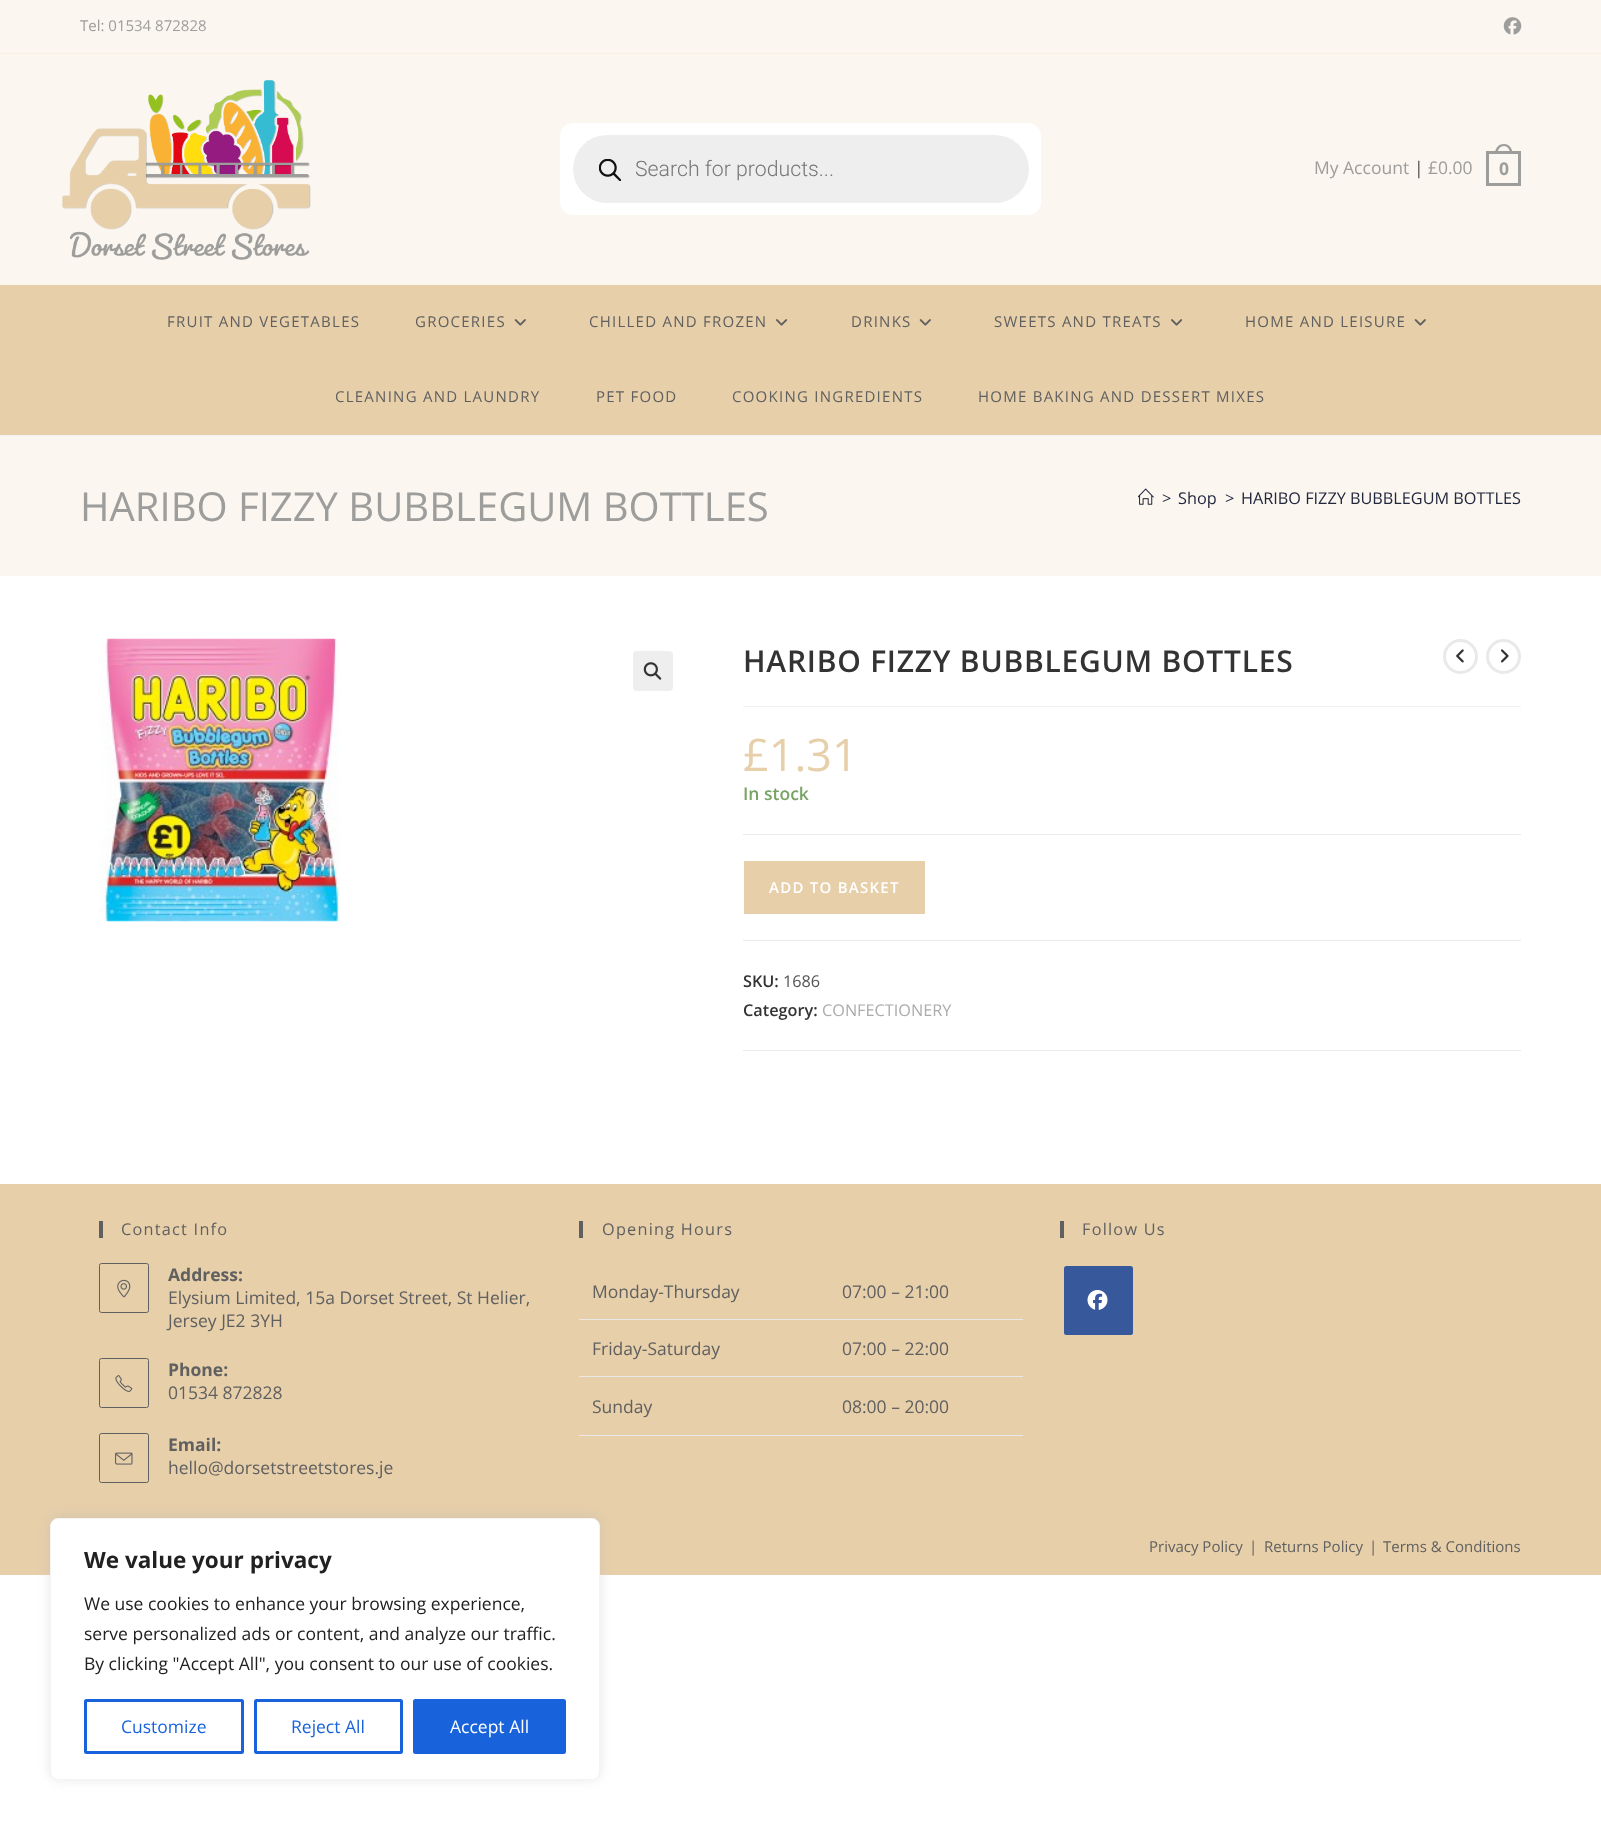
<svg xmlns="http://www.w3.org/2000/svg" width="1601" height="1830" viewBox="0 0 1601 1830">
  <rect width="100%" height="100%" fill="#fff"/>
  <path d="M0 0h1601v53H0z" fill="#fbf6ef"/>
  <path d="M0 53h1601v1H0z" fill="#f9efe0"/>
  <image x="1503" y="17" width="19" height="18" href="img/1.png"/>
  <path d="M0 435h1601v1H0z" fill="#f1f1f1"/>
  <path d="M0 54h1601v231H0z" fill="#fbf6ef"/>
  <image x="62" y="80" width="249" height="180" href="img/2.png"/>
  <rect x="560" y="123" width="481" height="92" rx="13" fill="#fff"/>
  <rect x="573" y="135" width="456" height="68" rx="34" fill="#eee"/>
  <image x="599" y="159" width="22" height="22" href="img/3.png"/>
  <path d="M1487.5 152.5h32v32H1487.5z" fill="none" stroke="#9d9d9c" stroke-width="3"/>
  <path d="M1504 144C1509.5 144 1512.5 148.5 1512.5 154H1495C1495 148.5 1498 144 1504 144ZM1504 146C1508 146 1510 150 1510 154H1497.5C1497.5 150 1499.5 146 1504 146Z" fill="#9d9d9c" fill-rule="evenodd"/>
  <path d="M0 285h1601v150H0z" fill="#e7cfaa"/>
  <image x="514" y="319" width="12" height="7" href="img/4.png"/>
  <image x="776" y="319" width="12" height="7" href="img/5.png"/>
  <image x="919" y="319" width="12" height="7" href="img/4.png"/>
  <image x="1171" y="319" width="12" height="7" href="img/5.png"/>
  <image x="1414" y="319" width="12" height="7" href="img/4.png"/>
  <path d="M0 436h1601v140H0z" fill="#fbf6ef"/>
  <image x="1138" y="488" width="16" height="17" href="img/6.png"/>
  <image x="99" y="638" width="241" height="284" href="img/7.png"/>
  <rect x="633" y="651" width="40" height="40" rx="4" fill="#eee"/>
  <image x="643" y="662" width="19" height="18" href="img/8.png"/>
  <path d="M743 706h778v1H743z" fill="#f1f1f1"/>
  <path d="M743 834h778v1H743z" fill="#eaeaea"/>
  <path d="M743 940h778v1H743z" fill="#eaeaea"/>
  <path d="M744 861h181v53H744z" fill="#e7cfaa"/>
  <path d="M743 1050h778v1H743z" fill="#eaeaea"/>
  <circle cx="1460.5" cy="656.5" r="16" fill="none" stroke="#e9e9e9" stroke-width="3"/>
  <image x="1456" y="649" width="8" height="14" href="img/9.png"/>
  <circle cx="1503.5" cy="656.5" r="16" fill="none" stroke="#e9e9e9" stroke-width="3"/>
  <image x="1500" y="649" width="9" height="14" href="img/10.png"/>
  <path d="M0 1184h1601v391H0z" fill="#e7cfaa"/>
  <path d="M99 1221h4v17H99z" fill="#606060"/>
  <rect x="99.5" y="1263.5" width="49" height="49" rx="2" fill="none" stroke="#606060"/>
  <image x="117" y="1279" width="14" height="19" href="img/11.png"/>
  <rect x="99.5" y="1358.5" width="49" height="49" rx="2" fill="none" stroke="#606060"/>
  <image x="115" y="1375" width="18" height="17" href="img/12.png"/>
  <rect x="99.5" y="1433.5" width="49" height="49" rx="2" fill="none" stroke="#606060"/>
  <image x="115" y="1452" width="18" height="13" href="img/13.png"/>
  <path d="M579 1221h4v17H579z" fill="#606060"/>
  <path d="M579 1319h444v1H579z" fill="#e9e9e9"/>
  <path d="M579 1376h444v1H579z" fill="#e9e9e9"/>
  <path d="M579 1435h444v1H579z" fill="#e9e9e9"/>
  <path d="M1060 1221h4v17H1060z" fill="#606060"/>
  <rect x="1064" y="1266" width="69" height="69" rx="2.5" fill="#37589b"/>
  <image x="1087" y="1290" width="21" height="20" href="img/14.png"/>
  <rect x="50" y="1516" width="550" height="263" rx="8" fill="#acabab4d" filter="blur(6px)"/>
  <rect x="50.5" y="1518.5" width="549" height="261" rx="7.5" fill="#fff" stroke="#f4f4f4"/>
  <rect x="85.5" y="1700.5" width="157" height="52" rx="1" fill="none" stroke="#1863dc" stroke-width="3"/>
  <rect x="255.5" y="1700.5" width="146" height="52" rx="1" fill="none" stroke="#1863dc" stroke-width="3"/>
  <rect x="414.5" y="1700.5" width="150" height="52" rx="1" fill="#1863dc" stroke="#1863dc" stroke-width="3"/>
  <text x="80" y="31" font-family="Open Sans" font-size="15" fill="#9d9d9c">Tel: 01534 872828</text>
  <text x="635" y="176" font-family="Roboto" font-size="21.25" font-weight="300" fill="#777">Search for products...</text>
  <text x="1314" y="174" font-family="Open Sans" font-size="17.5" fill="#9d9d9c">My Account</text>
  <text x="1414" y="174" font-family="Open Sans" font-size="17.5" fill="#4a4a4a">|</text>
  <text x="1428" y="174" font-family="Open Sans" font-size="17.5" fill="#9d9d9c">£0.00</text>
  <text x="1499" y="175" font-family="Open Sans" font-size="17.5" font-weight="bold" fill="#9d9d9c">0</text>
  <g font-family="Open Sans" font-size="15" letter-spacing="1.25" fill="#606060">
    <text x="167" y="327">FRUIT AND VEGETABLES</text>
    <text x="415" y="327">GROCERIES</text>
    <text x="589" y="327">CHILLED AND FROZEN</text>
    <text x="851" y="327">DRINKS</text>
    <text x="994" y="327">SWEETS AND TREATS</text>
    <text x="1245" y="327">HOME AND LEISURE</text>
    <text x="335" y="402">CLEANING AND LAUNDRY</text>
    <text x="596" y="402">PET FOOD</text>
    <text x="732" y="402">COOKING INGREDIENTS</text>
    <text x="978" y="402">HOME BAKING AND DESSERT MIXES</text>
  </g>
  <text x="80" y="521" font-family="Open Sans" font-size="40" fill="#9d9d9c">HARIBO FIZZY BUBBLEGUM BOTTLES</text>
  <g font-family="Open Sans" font-size="16.25" fill="#21273d">
    <text x="1162" y="504">&gt;</text>
    <text x="1178" y="504">Shop</text>
    <text x="1225" y="504">&gt;</text>
    <text x="1241" y="504">HARIBO FIZZY BUBBLEGUM BOTTLES</text>
  </g>
  <text x="743" y="672" font-family="Open Sans" font-size="30" font-weight="600" letter-spacing="0.75" fill="#333">HARIBO FIZZY BUBBLEGUM BOTTLES</text>
  <text x="743" y="771" font-family="Open Sans" font-size="45" fill="#e7cfaa">£1.31</text>
  <text x="743" y="800" font-family="Open Sans" font-size="17.5" font-weight="600" fill="#77a464">In stock</text>
  <text x="769" y="893" font-family="Open Sans" font-size="15" font-weight="600" letter-spacing="1.25" fill="#fff">ADD TO BASKET</text>
  <text x="743" y="987" font-family="Open Sans" font-size="16.25" font-weight="600" fill="#333">SKU:</text>
  <text x="783" y="987" font-family="Open Sans" font-size="16.25" fill="#555">1686</text>
  <text x="743" y="1016" font-family="Open Sans" font-size="16.25" font-weight="600" fill="#333">Category:</text>
  <text x="822" y="1016" font-family="Open Sans" font-size="16.25" fill="#ababab">CONFECTIONERY</text>
  <text x="121" y="1235" font-family="Open Sans" font-size="16.25" letter-spacing="1.25" fill="#606060">Contact Info</text>
  <text x="168" y="1281" font-family="Open Sans" font-size="17.5" font-weight="bold" fill="#606060">Address:</text>
  <g font-family="Open Sans" font-size="17.5" fill="#606060">
    <text x="168" y="1304">Elysium Limited, 15a Dorset Street, St Helier,</text>
    <text x="168" y="1327">Jersey JE2 3YH</text>
  </g>
  <text x="168" y="1376" font-family="Open Sans" font-size="17.5" font-weight="bold" fill="#606060">Phone:</text>
  <text x="168" y="1399" font-family="Open Sans" font-size="17.5" fill="#606060">01534 872828</text>
  <text x="168" y="1451" font-family="Open Sans" font-size="17.5" font-weight="bold" fill="#606060">Email:</text>
  <text x="168" y="1474" font-family="Open Sans" font-size="17.5" fill="#606060">hello@dorsetstreetstores.je</text>
  <text x="602" y="1235" font-family="Open Sans" font-size="16.25" letter-spacing="1.25" fill="#606060">Opening Hours</text>
  <g font-family="Open Sans" font-size="17.5" fill="#606060">
    <text x="592" y="1298">Monday-Thursday</text>
    <text x="842" y="1298">07:00 – 21:00</text>
    <text x="592" y="1355">Friday-Saturday</text>
    <text x="842" y="1355">07:00 – 22:00</text>
    <text x="592" y="1413">Sunday</text>
    <text x="842" y="1413">08:00 – 20:00</text>
  </g>
  <text x="1082" y="1235" font-family="Open Sans" font-size="16.25" letter-spacing="1.25" fill="#606060">Follow Us</text>
  <g font-family="Open Sans" font-size="15" fill="#606060">
    <text x="1149" y="1552">Privacy Policy</text>
    <text x="1249" y="1552">|</text>
    <text x="1264" y="1552">Returns Policy</text>
    <text x="1369" y="1552">|</text>
    <text x="1383" y="1552">Terms &amp; Conditions</text>
  </g>
  <text x="84" y="1568" font-family="Open Sans" font-size="22.5" font-weight="bold" fill="#212121">We value your privacy</text>
  <g font-family="Open Sans" font-size="17.5" fill="#212121">
    <text x="84" y="1610">We use cookies to enhance your browsing experience,</text>
    <text x="84" y="1640">serve personalized ads or content, and analyze our traffic.</text>
    <text x="84" y="1670">By clicking "Accept All", you consent to our use of cookies.</text>
  </g>
  <g font-family="Open Sans" font-size="17.5" fill="#1863dc">
    <text x="121" y="1733">Customize</text>
    <text x="291" y="1733">Reject All</text>
  </g>
  <text x="450" y="1733" font-family="Open Sans" font-size="17.5" fill="#fff">Accept All</text>
</svg>
